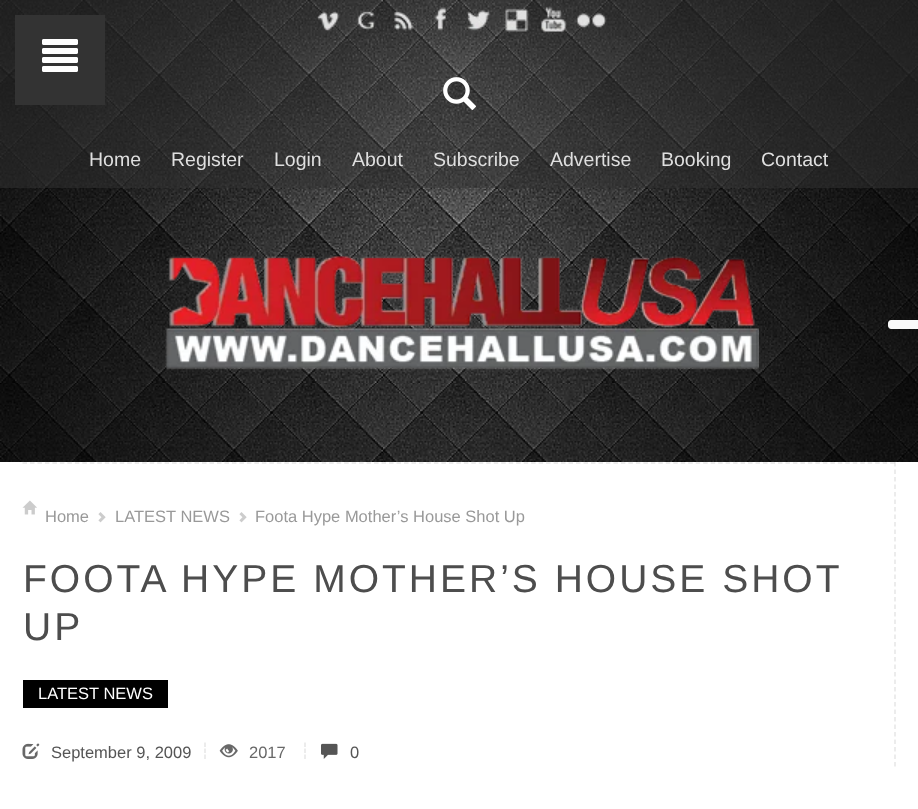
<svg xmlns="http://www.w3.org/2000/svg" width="918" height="809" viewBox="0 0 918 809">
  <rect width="100%" height="100%" fill="#fff"/>
  <image x="0" y="0" width="918" height="462" href="img/1.png"/>
  <path d="M0 0h918v188H0z" fill="#33333380"/>
  <path d="M15 15h90v90H15z" fill="#333"/>
  <image x="42" y="39" width="36" height="33" href="img/2.png"/>
  <image x="317" y="11" width="23" height="20" href="img/3.png"/>
  <image x="357" y="10" width="19" height="20" href="img/4.png"/>
  <image x="394" y="11" width="19" height="20" href="img/5.png"/>
  <image x="434" y="7" width="12" height="24" href="img/6.png"/>
  <image x="466" y="10" width="24" height="21" href="img/7.png"/>
  <image x="505" y="8" width="24" height="24" href="img/8.png"/>
  <image x="541" y="7" width="25" height="25" href="img/9.png"/>
  <image x="576" y="13" width="31" height="15" href="img/10.png"/>
  <image x="443" y="77" width="33" height="33" href="img/11.png"/>
  <image x="165" y="255" width="594" height="115" href="img/12.png"/>
  <path d="M891 320H918V329H891C889.5 329 888 327.5 888 326V323C888 321.5 889.5 320 891 320Z" fill="#f9f9f9"/>
  <path d="M22.5 463H895.5" fill="none" stroke="#e6e6e6" stroke-width="1.5" stroke-dasharray="4.5 2.98"/>
  <path d="M895 462V766.5" fill="none" stroke="#0000001a" stroke-width="1.5" stroke-dasharray="4.5 3"/>
  <image x="22" y="500" width="15" height="15" href="img/13.png"/>
  <image x="98" y="512" width="8" height="11" href="img/14.png"/>
  <image x="239" y="512" width="8" height="11" href="img/14.png"/>
  <path d="M23 680h145v28H23z" fill="#000"/>
  <image x="22" y="743" width="18" height="16" href="img/15.png"/>
  <path d="M205 742.5V747M205 748.5V753M205 754.5V759" fill="none" stroke="#e6e6e6" stroke-width="1.5"/>
  <image x="219" y="744" width="19" height="14" href="img/16.png"/>
  <path d="M305 742.5V747M305 748.5V753M305 754.5V759" fill="none" stroke="#e6e6e6" stroke-width="1.5"/>
  <image x="321" y="743" width="17" height="16" href="img/17.png"/>
  <g font-family="Liberation Sans" font-size="19.5" fill="#dfdfdf">
    <text x="89" y="166">Home</text>
    <text x="171" y="166">Register</text>
    <text x="274" y="166">Login</text>
    <text x="352" y="166">About</text>
    <text x="433" y="166">Subscribe</text>
    <text x="550" y="166">Advertise</text>
    <text x="661" y="166">Booking</text>
    <text x="761" y="166">Contact</text>
  </g>
  <g font-family="Liberation Sans" font-size="16.5" fill="#999">
    <text x="45" y="522">Home</text>
    <text x="115" y="522">LATEST NEWS</text>
    <text x="255" y="522">Foota Hype Mother’s House Shot Up</text>
  </g>
  <g font-family="Liberation Sans" font-size="39" letter-spacing="3" fill="#4d4d4d">
    <text x="23" y="592">FOOTA HYPE MOTHER’S HOUSE SHOT</text>
    <text x="23" y="640">UP</text>
  </g>
  <text x="38" y="699" font-family="Liberation Sans" font-size="16.5" fill="#fff">LATEST NEWS</text>
  <text x="51" y="758" font-family="Liberation Sans" font-size="16.5" fill="#555">September 9, 2009</text>
  <text x="249" y="758" font-family="Liberation Sans" font-size="16.5" fill="#686868">2017</text>
  <text x="350" y="758" font-family="Liberation Sans" font-size="16.5" fill="#555">0</text>
</svg>
